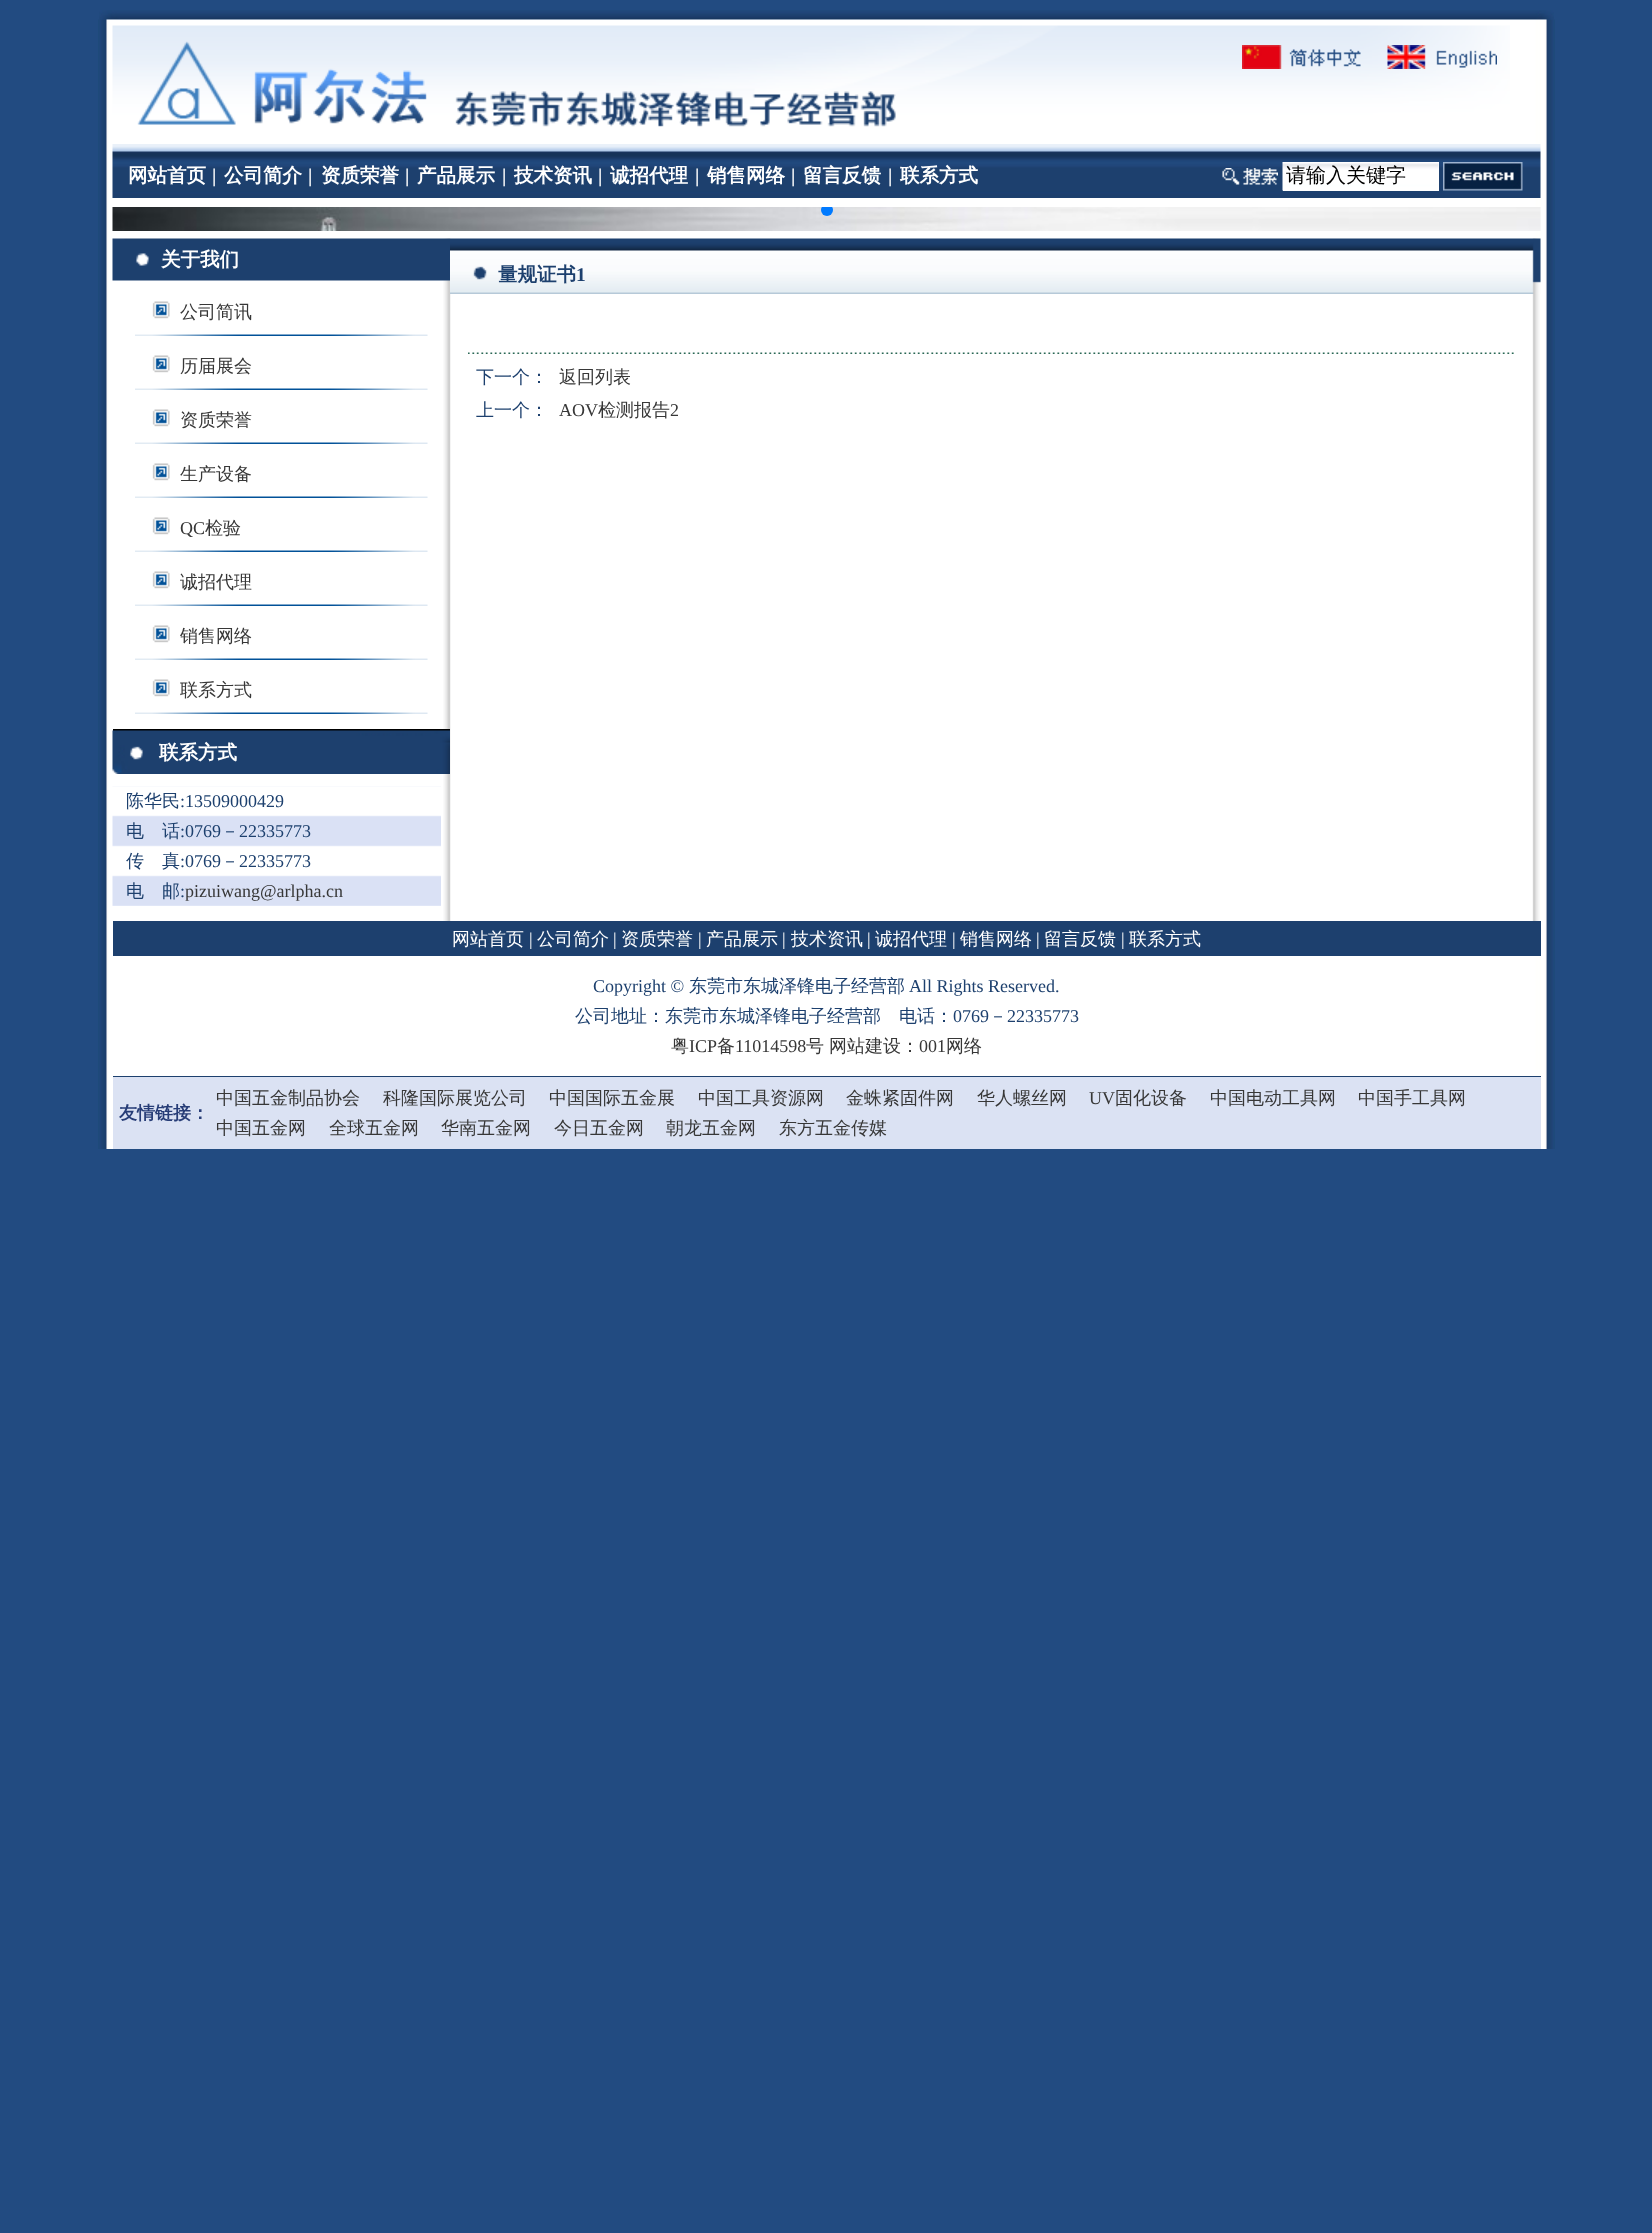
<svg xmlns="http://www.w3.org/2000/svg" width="1652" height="2233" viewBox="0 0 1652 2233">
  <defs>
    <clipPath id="clip1"><path d="M113 207h1428v24H113z"/></clipPath>
  </defs>
  <rect width="100%" height="100%" fill="#224b81"/>
  <image x="99" y="10" width="1455" height="10" href="img/1.png"/>
  <image x="98" y="19" width="1457" height="1130" href="img/2.png"/>
  <image x="112" y="25" width="1398" height="102" href="img/3.png"/>
  <image x="1242" y="45" width="119" height="24" href="img/4.png"/>
  <image x="1387" y="45" width="110" height="24" href="img/5.png"/>
  <image x="112" y="144" width="1429" height="54" href="img/6.png"/>
  <image x="1222" y="168" width="56" height="17" href="img/7.png"/>
  <path d="M1283 162h156v29H1283z" fill="#fff"/>
  <image x="1282" y="162" width="157" height="29" href="img/8.png"/>
  <image x="1443" y="162" width="80" height="29" href="img/9.png"/>
  <image x="112" y="207" width="1429" height="24" href="img/10.png"/>
  <g clip-path="url(#clip1)">
    <circle cx="827" cy="210" r="6" fill="#007aff"/>
  </g>
  <image x="443" y="238" width="1097" height="683" href="img/11.png"/>
  <image x="112" y="238" width="338" height="43" href="img/12.png"/>
  <path d="M113 729h337v2H113z" fill="#000"/>
  <image x="135" y="301" width="293" height="35" href="img/13.png"/>
  <image x="135" y="355" width="293" height="35" href="img/13.png"/>
  <image x="135" y="409" width="293" height="35" href="img/13.png"/>
  <image x="135" y="463" width="293" height="35" href="img/13.png"/>
  <image x="135" y="517" width="293" height="35" href="img/13.png"/>
  <image x="135" y="571" width="293" height="35" href="img/13.png"/>
  <image x="135" y="625" width="293" height="35" href="img/13.png"/>
  <image x="135" y="679" width="293" height="35" href="img/13.png"/>
  <image x="112" y="730" width="338" height="44" href="img/14.png"/>
  <image x="112" y="786" width="329" height="120" href="img/15.png"/>
  <image x="450" y="238" width="1091" height="56" href="img/16.png"/>
  <image x="468" y="352" width="1046" height="2" href="img/17.png"/>
  <path d="M113 921h1428v35H113z" fill="#1d406e"/>
  <path d="M113 1076h1428v1H113z" fill="#1d406e"/>
  <path d="M113 1077h1428v72H113z" fill="#dbe2f3"/>
  <text x="128" y="182" font-family="WenQuanYi Zen Hei" font-size="19.5" font-weight="bold" fill="#fff">网站首页</text>
  <text x="212" y="182" font-family="Liberation Serif" font-size="19.5" font-weight="bold" fill="#fff">|</text>
  <text x="224" y="182" font-family="WenQuanYi Zen Hei" font-size="19.5" font-weight="bold" fill="#fff">公司简介</text>
  <text x="308" y="182" font-family="Liberation Serif" font-size="19.5" font-weight="bold" fill="#fff">|</text>
  <text x="321" y="182" font-family="WenQuanYi Zen Hei" font-size="19.5" font-weight="bold" fill="#fff">资质荣誉</text>
  <text x="405" y="182" font-family="Liberation Serif" font-size="19.5" font-weight="bold" fill="#fff">|</text>
  <text x="417" y="182" font-family="WenQuanYi Zen Hei" font-size="19.5" font-weight="bold" fill="#fff">产品展示</text>
  <text x="502" y="182" font-family="Liberation Serif" font-size="19.5" font-weight="bold" fill="#fff">|</text>
  <text x="514" y="182" font-family="WenQuanYi Zen Hei" font-size="19.5" font-weight="bold" fill="#fff">技术资讯</text>
  <text x="598" y="182" font-family="Liberation Serif" font-size="19.5" font-weight="bold" fill="#fff">|</text>
  <text x="610" y="182" font-family="WenQuanYi Zen Hei" font-size="19.5" font-weight="bold" fill="#fff">诚招代理</text>
  <text x="695" y="182" font-family="Liberation Serif" font-size="19.5" font-weight="bold" fill="#fff">|</text>
  <text x="707" y="182" font-family="WenQuanYi Zen Hei" font-size="19.5" font-weight="bold" fill="#fff">销售网络</text>
  <text x="791" y="182" font-family="Liberation Serif" font-size="19.5" font-weight="bold" fill="#fff">|</text>
  <text x="803" y="182" font-family="WenQuanYi Zen Hei" font-size="19.5" font-weight="bold" fill="#fff">留言反馈</text>
  <text x="888" y="182" font-family="Liberation Serif" font-size="19.5" font-weight="bold" fill="#fff">|</text>
  <text x="900" y="182" font-family="WenQuanYi Zen Hei" font-size="19.5" font-weight="bold" fill="#fff">联系方式</text>
  <text x="1286" y="182" font-family="WenQuanYi Zen Hei" font-size="20" font-weight="500" fill="#000">请输入关键字</text>
  <text x="161" y="266" font-family="WenQuanYi Zen Hei" font-size="19.5" font-weight="bold" fill="#fff">关于我们</text>
  <g font-family="WenQuanYi Zen Hei" font-size="18" font-weight="500" fill="#373737">
    <text x="180" y="318">公司简讯</text>
    <text x="180" y="372">历届展会</text>
    <text x="180" y="426">资质荣誉</text>
    <text x="180" y="480">生产设备</text>
  </g>
  <text x="180" y="534" font-family="Liberation Serif" font-size="18" fill="#373737">QC</text>
  <g font-family="WenQuanYi Zen Hei" font-size="18" font-weight="500" fill="#373737">
    <text x="205" y="534">检验</text>
    <text x="180" y="588">诚招代理</text>
    <text x="180" y="642">销售网络</text>
    <text x="180" y="696">联系方式</text>
  </g>
  <text x="159" y="759" font-family="WenQuanYi Zen Hei" font-size="19.5" font-weight="bold" fill="#fff">联系方式</text>
  <text x="126" y="807" font-family="WenQuanYi Zen Hei" font-size="18" font-weight="500" fill="#1d406e">陈华民</text>
  <text x="180" y="807" font-family="Liberation Serif" font-size="18" fill="#1d406e">:13509000429</text>
  <text x="126" y="837" font-family="WenQuanYi Zen Hei" font-size="18" font-weight="500" fill="#1d406e">电　话</text>
  <text x="180" y="837" font-family="Liberation Serif" font-size="18" fill="#1d406e">:0769</text>
  <text x="221" y="837" font-family="WenQuanYi Zen Hei" font-size="18" font-weight="500" fill="#1d406e">－</text>
  <text x="239" y="837" font-family="Liberation Serif" font-size="18" fill="#1d406e">22335773</text>
  <text x="126" y="867" font-family="WenQuanYi Zen Hei" font-size="18" font-weight="500" fill="#1d406e">传　真</text>
  <text x="180" y="867" font-family="Liberation Serif" font-size="18" fill="#1d406e">:0769</text>
  <text x="221" y="867" font-family="WenQuanYi Zen Hei" font-size="18" font-weight="500" fill="#1d406e">－</text>
  <text x="239" y="867" font-family="Liberation Serif" font-size="18" fill="#1d406e">22335773</text>
  <text x="126" y="897" font-family="WenQuanYi Zen Hei" font-size="18" font-weight="500" fill="#1d406e">电　邮</text>
  <text x="180" y="897" font-family="Liberation Serif" font-size="18" fill="#1d406e">:</text>
  <text x="185" y="897" font-family="Liberation Serif" font-size="18" fill="#373737">pizuiwang@arlpha.cn</text>
  <text x="498" y="281" font-family="WenQuanYi Zen Hei" font-size="19.5" font-weight="bold" fill="#1d406e">量规证书</text>
  <text x="576" y="281" font-family="Liberation Serif" font-size="19.5" font-weight="bold" fill="#1d406e">1</text>
  <text x="476" y="383" font-family="WenQuanYi Zen Hei" font-size="18" font-weight="500" fill="#1d406e">下一个：</text>
  <text x="559" y="383" font-family="WenQuanYi Zen Hei" font-size="18" font-weight="500" fill="#373737">返回列表</text>
  <text x="476" y="416" font-family="WenQuanYi Zen Hei" font-size="18" font-weight="500" fill="#1d406e">上一个：</text>
  <text x="559" y="416" font-family="Liberation Serif" font-size="18" fill="#373737">AOV</text>
  <text x="598" y="416" font-family="WenQuanYi Zen Hei" font-size="18" font-weight="500" fill="#373737">检测报告</text>
  <text x="670" y="416" font-family="Liberation Serif" font-size="18" fill="#373737">2</text>
  <text x="452" y="945" font-family="WenQuanYi Zen Hei" font-size="18" font-weight="500" fill="#fff">网站首页</text>
  <text x="529" y="945" font-family="Liberation Serif" font-size="18" fill="#fff">|</text>
  <text x="537" y="945" font-family="WenQuanYi Zen Hei" font-size="18" font-weight="500" fill="#fff">公司简介</text>
  <text x="613" y="945" font-family="Liberation Serif" font-size="18" fill="#fff">|</text>
  <text x="621" y="945" font-family="WenQuanYi Zen Hei" font-size="18" font-weight="500" fill="#fff">资质荣誉</text>
  <text x="698" y="945" font-family="Liberation Serif" font-size="18" fill="#fff">|</text>
  <text x="706" y="945" font-family="WenQuanYi Zen Hei" font-size="18" font-weight="500" fill="#fff">产品展示</text>
  <text x="782" y="945" font-family="Liberation Serif" font-size="18" fill="#fff">|</text>
  <text x="791" y="945" font-family="WenQuanYi Zen Hei" font-size="18" font-weight="500" fill="#fff">技术资讯</text>
  <text x="867" y="945" font-family="Liberation Serif" font-size="18" fill="#fff">|</text>
  <text x="875" y="945" font-family="WenQuanYi Zen Hei" font-size="18" font-weight="500" fill="#fff">诚招代理</text>
  <text x="952" y="945" font-family="Liberation Serif" font-size="18" fill="#fff">|</text>
  <text x="960" y="945" font-family="WenQuanYi Zen Hei" font-size="18" font-weight="500" fill="#fff">销售网络</text>
  <text x="1036" y="945" font-family="Liberation Serif" font-size="18" fill="#fff">|</text>
  <text x="1044" y="945" font-family="WenQuanYi Zen Hei" font-size="18" font-weight="500" fill="#fff">留言反馈</text>
  <text x="1121" y="945" font-family="Liberation Serif" font-size="18" fill="#fff">|</text>
  <text x="1129" y="945" font-family="WenQuanYi Zen Hei" font-size="18" font-weight="500" fill="#fff">联系方式</text>
  <text x="593" y="992" font-family="Liberation Serif" font-size="18" fill="#1d406e">Copyright ©</text>
  <text x="689" y="992" font-family="WenQuanYi Zen Hei" font-size="18" font-weight="500" fill="#1d406e">东莞市东城泽锋电子经营部</text>
  <text x="909" y="992" font-family="Liberation Serif" font-size="18" fill="#1d406e">All Rights Reserved.</text>
  <g font-family="WenQuanYi Zen Hei" font-size="18" font-weight="500" fill="#1d406e">
    <text x="575" y="1022">公司地址：东莞市东城泽锋电子经营部</text>
    <text x="899" y="1022">电话：</text>
  </g>
  <text x="953" y="1022" font-family="Liberation Serif" font-size="18" fill="#1d406e">0769</text>
  <text x="989" y="1022" font-family="WenQuanYi Zen Hei" font-size="18" font-weight="500" fill="#1d406e">－</text>
  <text x="1007" y="1022" font-family="Liberation Serif" font-size="18" fill="#1d406e">22335773</text>
  <text x="671" y="1052" font-family="WenQuanYi Zen Hei" font-size="18" font-weight="500" fill="#373737">粤</text>
  <text x="689" y="1052" font-family="Liberation Serif" font-size="18" fill="#373737">ICP</text>
  <text x="717" y="1052" font-family="WenQuanYi Zen Hei" font-size="18" font-weight="500" fill="#373737">备</text>
  <text x="735" y="1052" font-family="Liberation Serif" font-size="18" fill="#373737">11014598</text>
  <g font-family="WenQuanYi Zen Hei" font-size="18" font-weight="500" fill="#373737">
    <text x="806" y="1052">号</text>
    <text x="829" y="1052">网站建设：</text>
  </g>
  <text x="919" y="1052" font-family="Liberation Serif" font-size="18" fill="#373737">001</text>
  <text x="946" y="1052" font-family="WenQuanYi Zen Hei" font-size="18" font-weight="500" fill="#373737">网络</text>
  <text x="119" y="1119" font-family="WenQuanYi Zen Hei" font-size="18" font-weight="bold" fill="#273d77">友情链接：</text>
  <g font-family="WenQuanYi Zen Hei" font-size="18" font-weight="500" fill="#373737">
    <text x="216" y="1104">中国五金制品协会</text>
    <text x="383" y="1104">科隆国际展览公司</text>
    <text x="549" y="1104">中国国际五金展</text>
    <text x="698" y="1104">中国工具资源网</text>
    <text x="846" y="1104">金蛛紧固件网</text>
    <text x="977" y="1104">华人螺丝网</text>
  </g>
  <text x="1089" y="1104" font-family="Liberation Serif" font-size="18" fill="#373737">UV</text>
  <g font-family="WenQuanYi Zen Hei" font-size="18" font-weight="500" fill="#373737">
    <text x="1115" y="1104">固化设备</text>
    <text x="1210" y="1104">中国电动工具网</text>
    <text x="1358" y="1104">中国手工具网</text>
    <text x="216" y="1134">中国五金网</text>
    <text x="329" y="1134">全球五金网</text>
    <text x="441" y="1134">华南五金网</text>
    <text x="554" y="1134">今日五金网</text>
    <text x="666" y="1134">朝龙五金网</text>
    <text x="779" y="1134">东方五金传媒</text>
  </g>
</svg>
